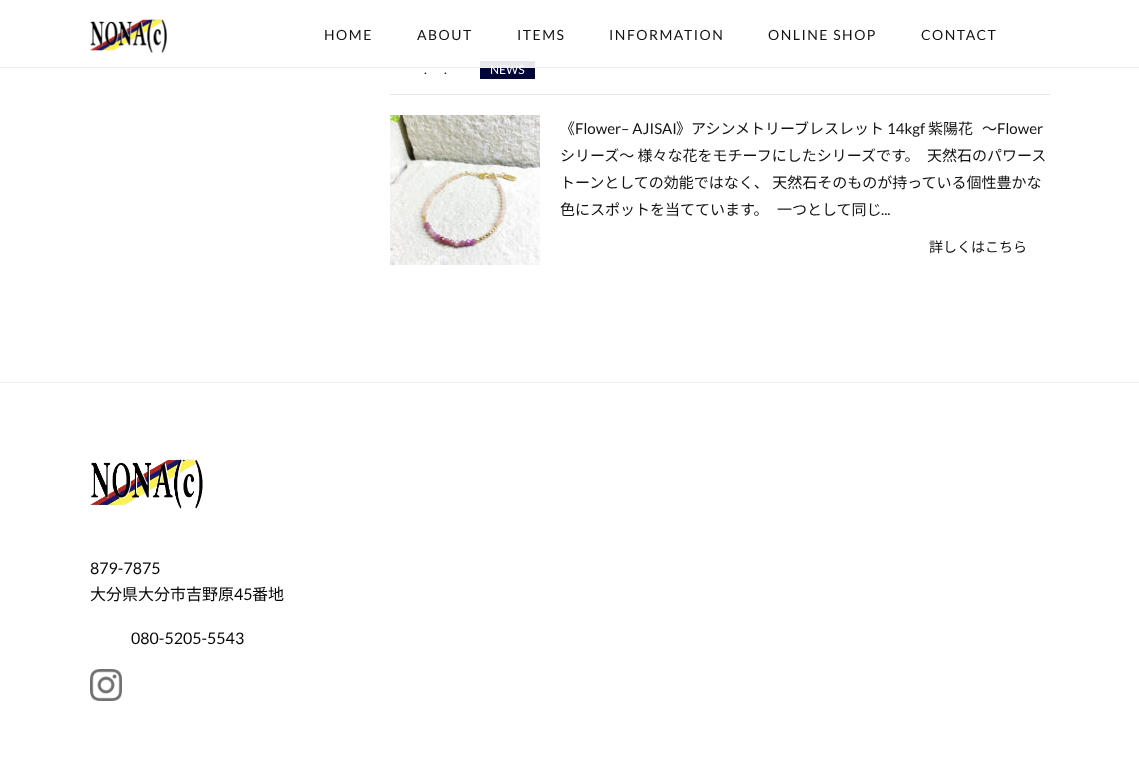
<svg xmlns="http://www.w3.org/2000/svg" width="1139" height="763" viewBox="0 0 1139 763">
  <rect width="100%" height="100%" fill="#fff"/>
  <image x="90" y="19" width="77" height="34" href="img/1.png"/>
  <path d="M390 94h660v1H390z" fill="#e6e6e6"/>
  <path d="M480 61h55v18H480z" fill="#000438"/>
  <image x="390" y="115" width="150" height="150" href="img/2.png"/>
  <path d="M0 382h1139v1H0z" fill="#eee"/>
  <image x="90" y="459" width="113" height="50" href="img/3.png"/>
  <image x="90" y="669" width="32" height="32" href="img/4.png"/>
  <g font-family="Lato" font-size="14" letter-spacing="1.5" fill="#121212">
    <text x="324" y="40">HOME</text>
    <text x="417" y="40">ABOUT</text>
    <text x="517" y="40">ITEMS</text>
    <text x="609" y="40">INFORMATION</text>
    <text x="768" y="40">ONLINE SHOP</text>
    <text x="921" y="40">CONTACT</text>
  </g>
  <g font-family="Lato" font-size="13" letter-spacing="1" fill="#121212">
    <text x="424" y="74">.</text>
    <text x="444" y="74">.</text>
  </g>
  <text x="490" y="74" font-family="Lato" font-size="12" fill="#fff">NEWS</text>
  <path d="M0 67h1139v1H0z" fill="#eee"/>
  <path d="M480 61h55v6H480z" fill="#ffffffe6"/>
  <text x="560" y="134" font-family="Noto Sans JP" font-size="15" fill="#121212">《</text>
  <text x="575" y="134" font-family="Lato" font-size="15" fill="#121212">Flower– AJISAI</text>
  <text x="676" y="134" font-family="Noto Sans JP" font-size="15" fill="#121212">》アシンメトリーブレスレット</text>
  <text x="887" y="134" font-family="Lato" font-size="15" fill="#121212">14kgf</text>
  <g font-family="Noto Sans JP" font-size="15" fill="#121212">
    <text x="928" y="134">紫陽花</text>
    <text x="982" y="134">〜</text>
  </g>
  <text x="997" y="134" font-family="Lato" font-size="15" fill="#121212">Flower</text>
  <g font-family="Noto Sans JP" font-size="15" fill="#121212">
    <text x="560" y="161">シリーズ〜 様々な花をモチーフにしたシリーズです。</text>
    <text x="927" y="161">天然石のパワース</text>
    <text x="560" y="188">トーンとしての効能ではなく、 天然石そのものが持っている個性豊かな</text>
    <text x="560" y="215">色にスポットを当てています。</text>
    <text x="777" y="215">一つとして同じ</text>
  </g>
  <text x="881" y="215" font-family="Lato" font-size="15" fill="#121212">...</text>
  <text x="929" y="252" font-family="Noto Sans JP" font-size="14" fill="#121212">詳しくはこちら</text>
  <text x="90" y="574" font-family="Lato" font-size="16" fill="#060606">879-7875</text>
  <text x="90" y="600" font-family="Noto Sans JP" font-size="16" fill="#060606">大分県大分市吉野原</text>
  <text x="234" y="600" font-family="Lato" font-size="16" fill="#060606">45</text>
  <text x="252" y="600" font-family="Noto Sans JP" font-size="16" fill="#060606">番地</text>
  <text x="131" y="644" font-family="Lato" font-size="16" fill="#060606">080-5205-5543</text>
</svg>
